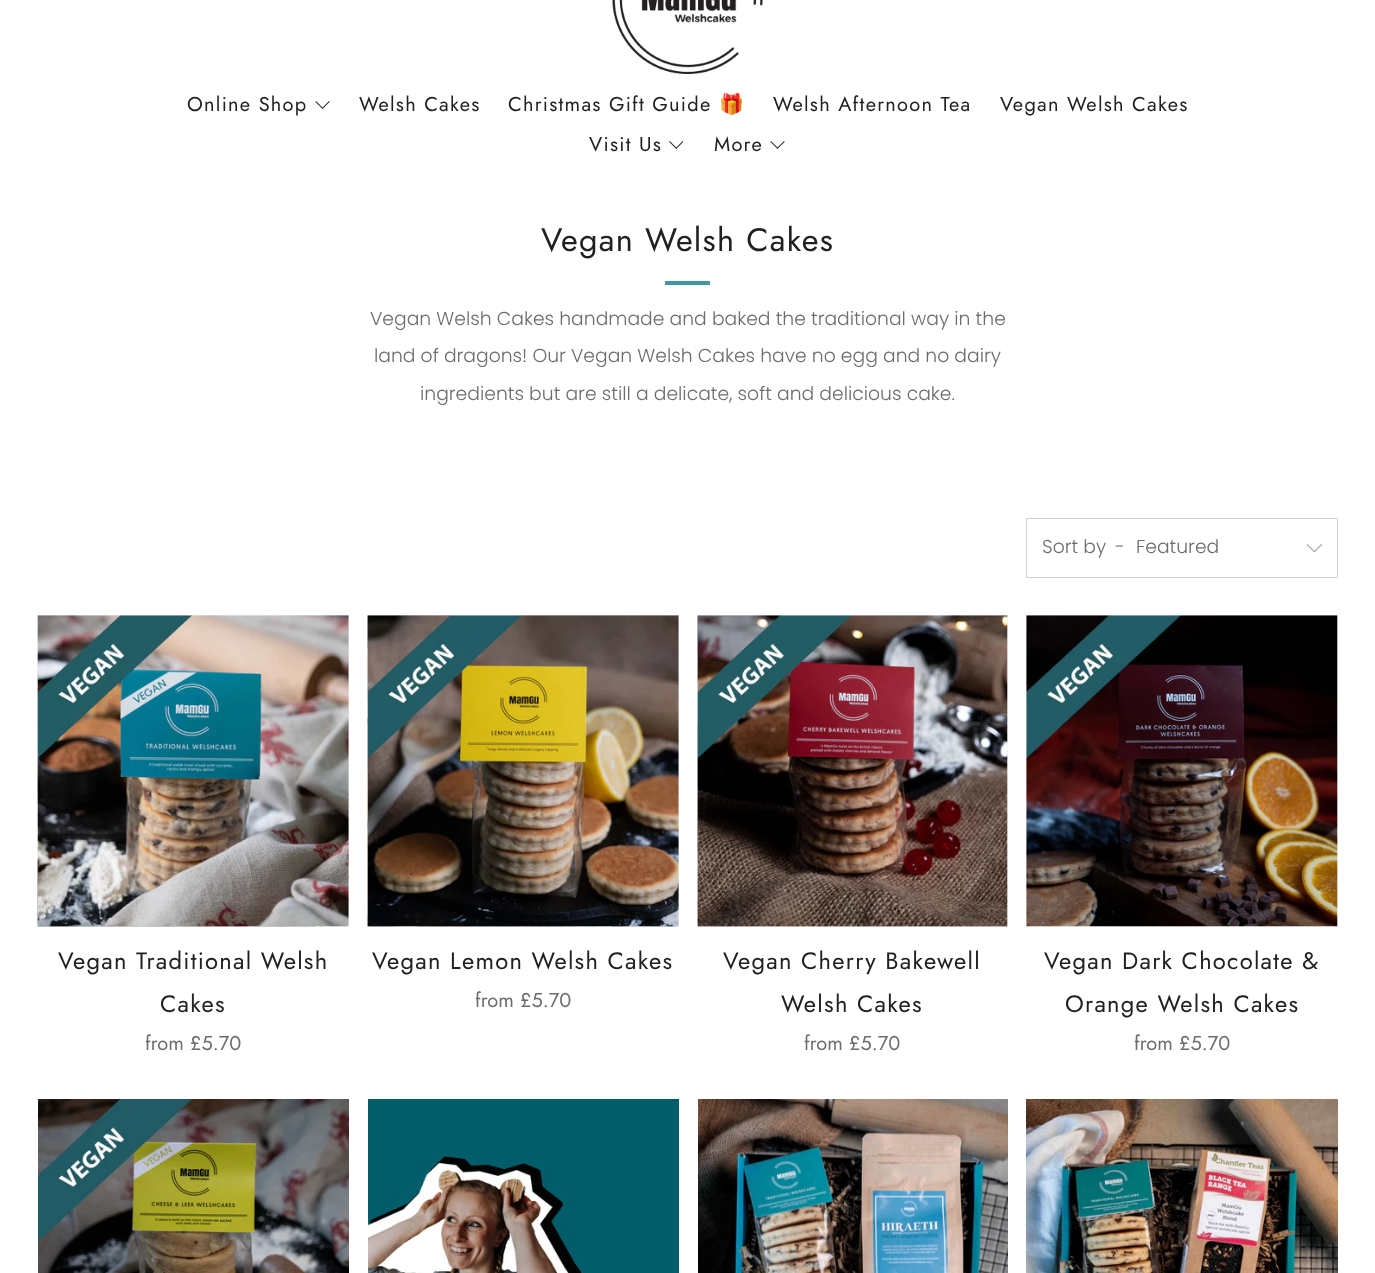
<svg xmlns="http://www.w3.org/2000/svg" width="1375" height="1273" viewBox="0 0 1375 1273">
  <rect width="100%" height="100%" fill="#fff"/>
  <image x="612" y="0" width="151" height="74" href="img/1.png"/>
  <image x="315" y="101" width="15" height="8" href="img/2.png"/>
  <image x="669" y="141" width="15" height="8" href="img/3.png"/>
  <image x="770" y="141" width="15" height="8" href="img/2.png"/>
  <path d="M665 281h45v4H665z" fill="#43969c"/>
  <path d="M1026.5 518.5h311v59H1026.5z" fill="none" stroke="#cfcfcf"/>
  <image x="1306" y="544" width="16" height="9" href="img/4.png"/>
  <image x="37" y="615" width="312" height="312" href="img/5.png"/>
  <path d="M38 615h311v311H38z" fill="#f0f0f0"/>
  <image x="37" y="615" width="312" height="312" href="img/6.png"/>
  <image x="367" y="615" width="312" height="312" href="img/7.png"/>
  <path d="M368 615h311v311H368z" fill="#f0f0f0"/>
  <image x="367" y="615" width="312" height="312" href="img/8.png"/>
  <image x="697" y="615" width="311" height="312" href="img/9.png"/>
  <path d="M698 615h310v311H698z" fill="#f0f0f0"/>
  <image x="697" y="615" width="311" height="312" href="img/10.png"/>
  <path d="M1026 615h312v311H1026z" fill="#f0f0f0"/>
  <image x="1026" y="926" width="312" height="1" href="img/12.png"/>
  <image x="1026" y="615" width="312" height="312" href="img/11.png"/>
  <image x="38" y="1099" width="311" height="174" href="img/13.png"/>
  <image x="368" y="1099" width="311" height="174" href="img/14.png"/>
  <image x="698" y="1099" width="310" height="174" href="img/15.png"/>
  <image x="1026" y="1099" width="312" height="174" href="img/16.png"/>
  <g font-family="Jost" font-size="20" letter-spacing="1.25" fill="#212121">
    <text x="187" y="111">Online Shop</text>
    <text x="359" y="111">Welsh Cakes</text>
    <text x="508" y="111">Christmas Gift Guide</text>
  </g>
  <text x="719" y="111" font-family="Noto Color Emoji" font-size="20" letter-spacing="1.25" fill="#212121">🎁</text>
  <g font-family="Jost" font-size="20" letter-spacing="1.25" fill="#212121">
    <text x="773" y="111">Welsh Afternoon Tea</text>
    <text x="1000" y="111">Vegan Welsh Cakes</text>
    <text x="589" y="151">Visit Us</text>
    <text x="714" y="151">More</text>
  </g>
  <text x="541" y="251" font-family="Jost" font-size="32.5" letter-spacing="1.25" fill="#212121">Vegan Welsh Cakes</text>
  <g font-family="Poppins" font-size="18.75" font-weight="300" fill="#6d6d6d">
    <text x="370" y="325">Vegan Welsh Cakes handmade and baked the traditional way in the</text>
    <text x="374" y="362">land of dragons! Our Vegan Welsh Cakes have no egg and no dairy</text>
    <text x="420" y="400">ingredients but are still a delicate, soft and delicious cake.</text>
    <text x="1042" y="553">Sort by</text>
    <text x="1115" y="553">-</text>
    <text x="1136" y="553">Featured</text>
  </g>
  <g font-family="Jost" font-size="23.75" letter-spacing="1.25" fill="#212121">
    <text x="58" y="969">Vegan Traditional Welsh</text>
    <text x="160" y="1012">Cakes</text>
  </g>
  <text x="145" y="1050" font-family="Jost" font-size="20" fill="#6d6d6d">from £5.70</text>
  <text x="372" y="969" font-family="Jost" font-size="23.75" letter-spacing="1.25" fill="#212121">Vegan Lemon Welsh Cakes</text>
  <text x="475" y="1007" font-family="Jost" font-size="20" fill="#6d6d6d">from £5.70</text>
  <g font-family="Jost" font-size="23.75" letter-spacing="1.25" fill="#212121">
    <text x="723" y="969">Vegan Cherry Bakewell</text>
    <text x="781" y="1012">Welsh Cakes</text>
  </g>
  <text x="804" y="1050" font-family="Jost" font-size="20" fill="#6d6d6d">from £5.70</text>
  <g font-family="Jost" font-size="23.75" letter-spacing="1.25" fill="#212121">
    <text x="1044" y="969">Vegan Dark Chocolate &amp;</text>
    <text x="1065" y="1012">Orange Welsh Cakes</text>
  </g>
  <text x="1134" y="1050" font-family="Jost" font-size="20" fill="#6d6d6d">from £5.70</text>
</svg>
